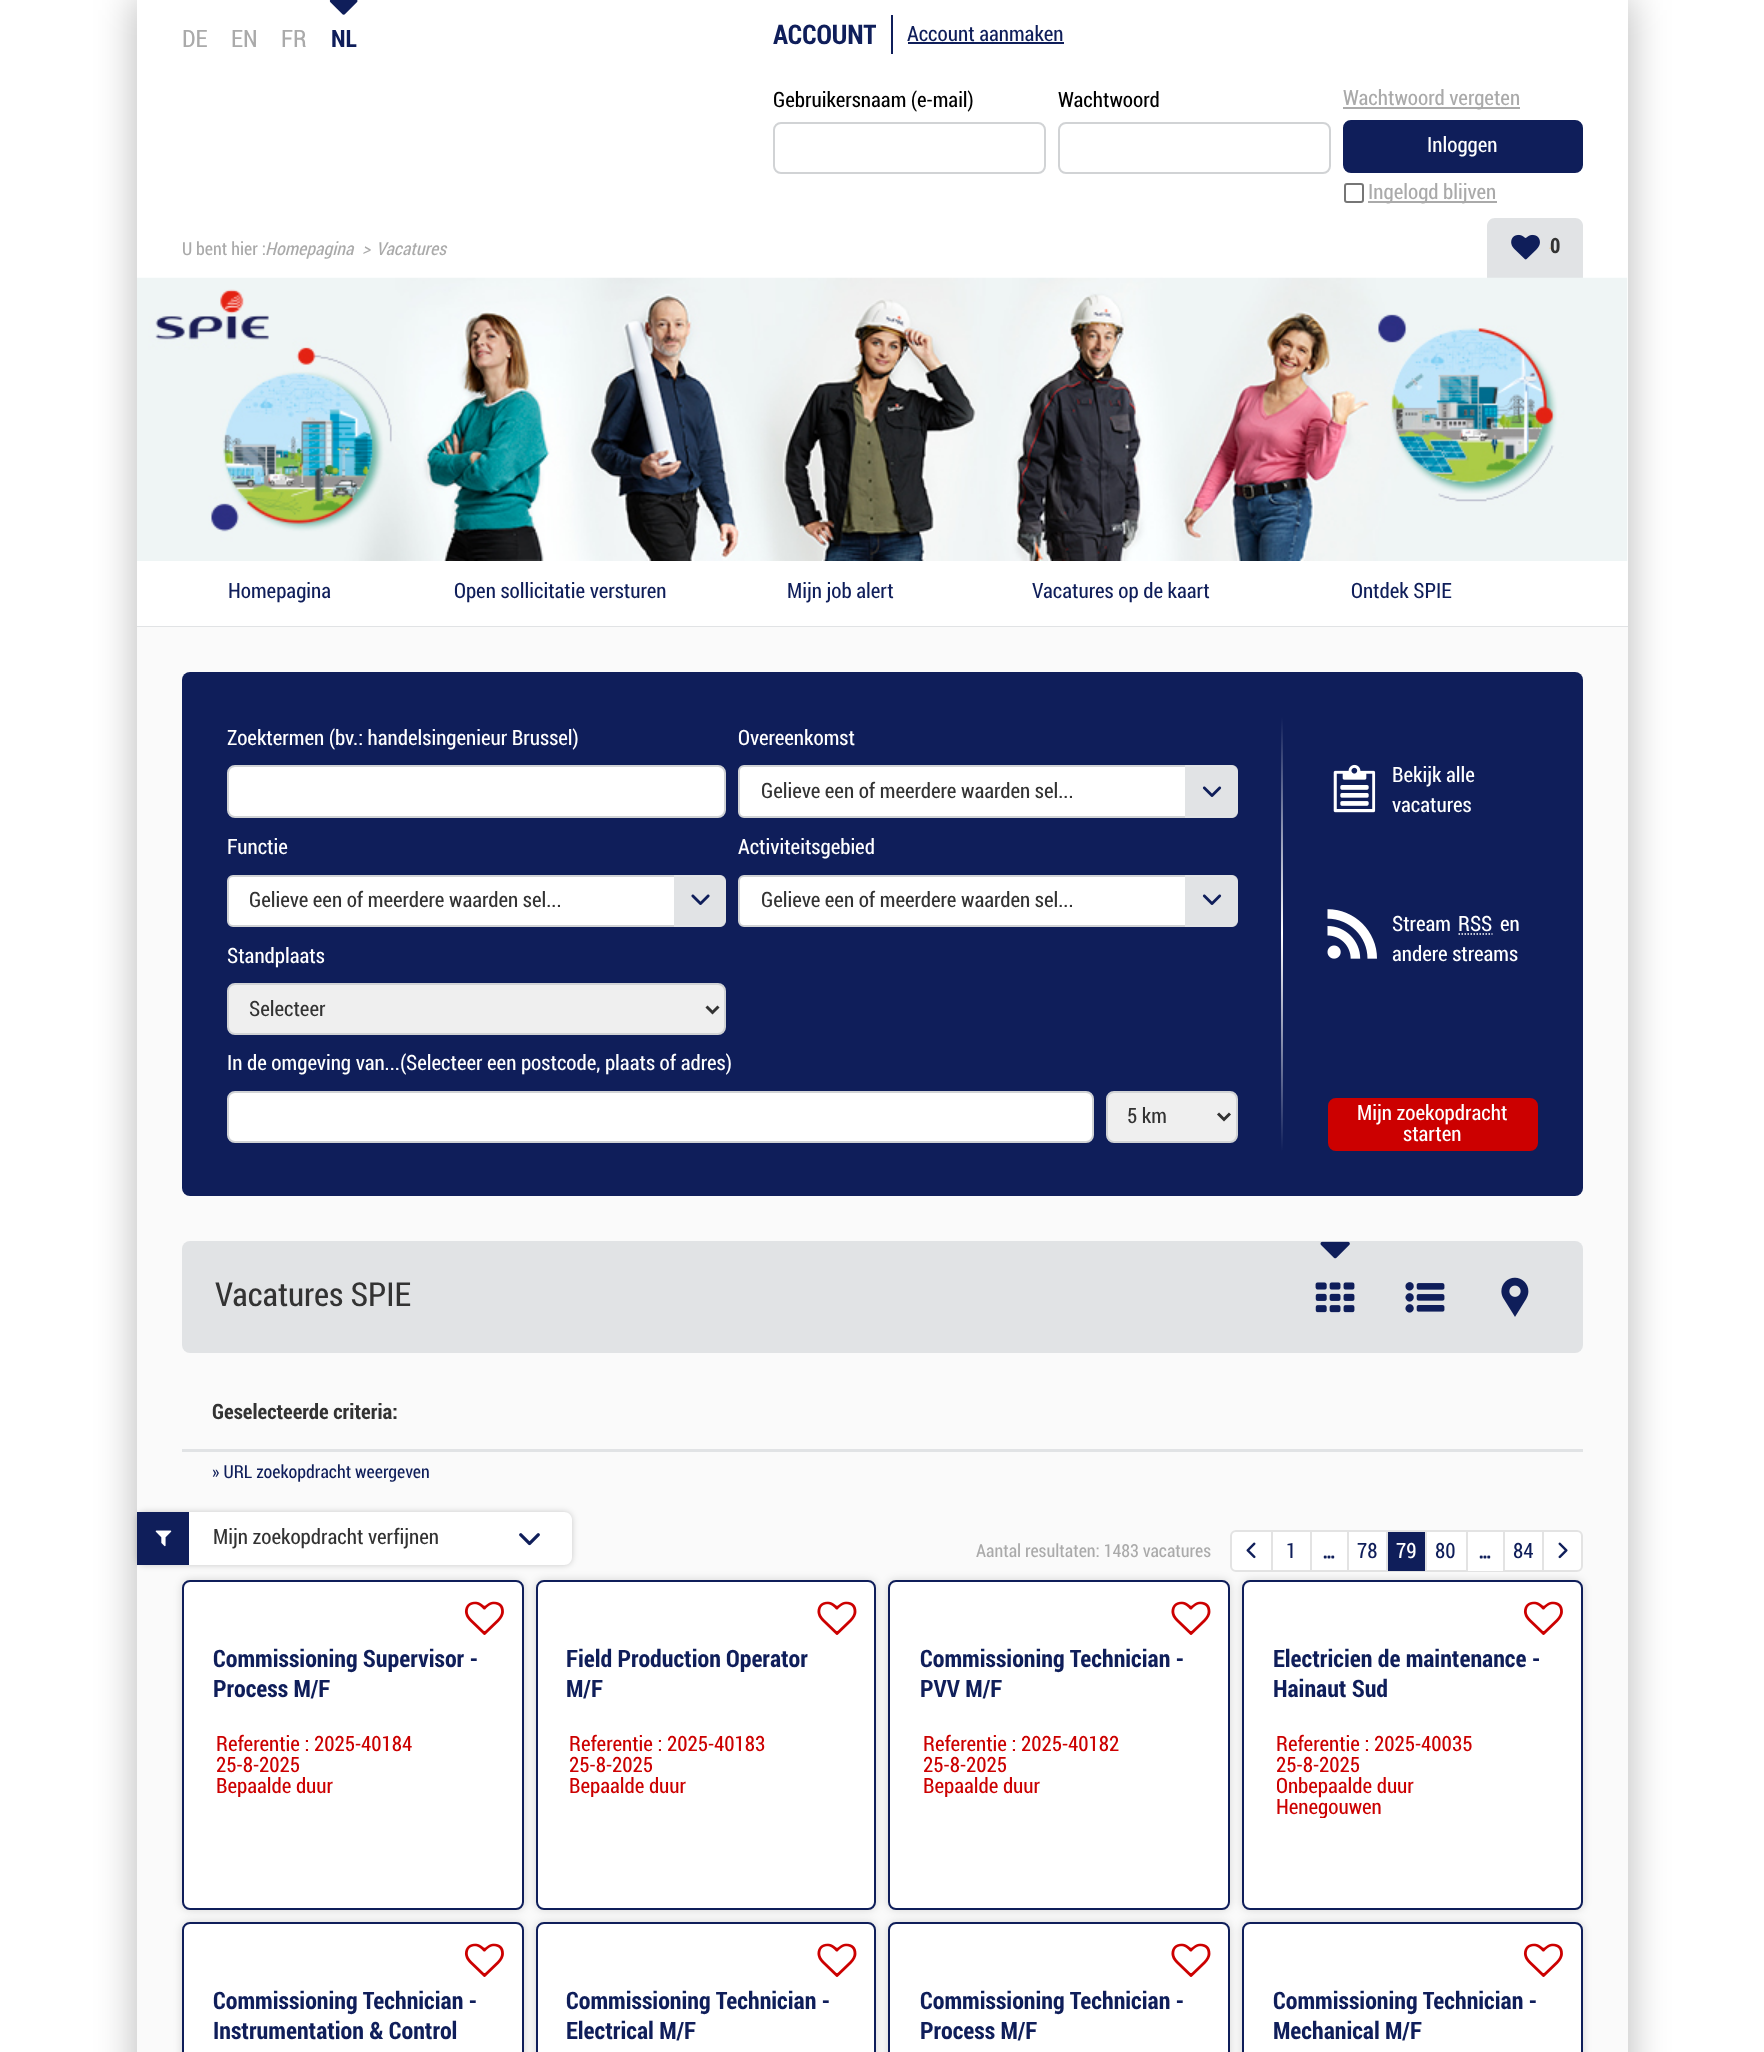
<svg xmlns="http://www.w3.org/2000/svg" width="1764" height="2052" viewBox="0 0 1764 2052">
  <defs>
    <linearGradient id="g1" gradientUnits="userSpaceOnUse" x1="1282" y1="717" x2="1282" y2="933"><stop offset="0" stop-color="#0f1e5a"/><stop offset="1" stop-color="#fff"/></linearGradient>
    <linearGradient id="g2" gradientUnits="userSpaceOnUse" x1="1282" y1="933" x2="1282" y2="1151"><stop offset="0" stop-color="#fff"/><stop offset="1" stop-color="#0f1e5a"/></linearGradient>
    <clipPath id="clip1"><path d="M216 1734h273v63H216z"/></clipPath>
    <clipPath id="clip2"><path d="M570 1734h272v63H570z"/></clipPath>
    <clipPath id="clip3"><path d="M923 1734h273v63H923z"/></clipPath>
    <clipPath id="clip4"><path d="M1277 1734h271v84H1277z"/></clipPath>
  </defs>
  <rect width="100%" height="100%" fill="#fff"/>
  <path d="M134 -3h1497v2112H134z" fill="#00000040" filter="blur(19px)"/>
  <path d="M137 0h1491v626H137z" fill="#fff"/>
  <image x="329" y="0" width="29" height="15" href="img/1.png"/>
  <path d="M891 15h2v39H891z" fill="#0f1e5a"/>
  <path d="M908 42h156v2H908z" fill="#0f1e5a"/>
  <rect x="774" y="123" width="271" height="50" rx="7" fill="none" stroke="#d1d3d5" stroke-width="2"/>
  <rect x="1059" y="123" width="271" height="50" rx="7" fill="none" stroke="#d1d3d5" stroke-width="2"/>
  <path d="M1343 107h177v2H1343z" fill="#aaa"/>
  <rect x="1345" y="184" width="18" height="18" rx="2" fill="none" stroke="#767676" stroke-width="2"/>
  <path d="M1368 201h129v2H1368z" fill="#aaa"/>
  <rect x="1344" y="121" width="238" height="51" rx="7" fill="#0f1e5a" stroke="#0f1e5a" stroke-width="2"/>
  <path d="M1495 218H1575C1579.5 218 1583 221.5 1583 226V278H1487V226C1487 221.5 1490.5 218 1495 218Z" fill="#e1e3e5"/>
  <image x="1511" y="234" width="29" height="26" href="img/2.png"/>
  <image x="1549" y="247" width="2" height="2" href="img/3.png"/>
  <image x="137" y="277" width="1491" height="284" href="img/4.png"/>
  <path d="M137 626h1491v1H137z" fill="#e1e3e5"/>
  <path d="M137 627h1491v1425H137z" fill="#fafafa"/>
  <rect x="182" y="672" width="1401" height="524" rx="8" fill="#0f1e5a"/>
  <rect x="228" y="766" width="497" height="51" rx="7" fill="#fff" stroke="#d1d3d5" stroke-width="2"/>
  <rect x="739" y="766" width="498" height="51" rx="5" fill="#fff" stroke="#d1d3d5" stroke-width="2"/>
  <path d="M1185 765H1230C1234.5 765 1238 768.5 1238 773V810C1238 814.5 1234.5 818 1230 818H1185Z" fill="#e1e3e5"/>
  <image x="1202" y="786" width="20" height="11" href="img/5.png"/>
  <path d="M1281 717h2v216H1281z" fill="url(#g1)"/>
  <rect x="228" y="876" width="497" height="50" rx="5" fill="#fff" stroke="#d1d3d5" stroke-width="2"/>
  <path d="M674 875H718C722.5 875 726 878.5 726 883V919C726 923.5 722.5 927 718 927H674Z" fill="#e1e3e5"/>
  <image x="691" y="894" width="19" height="11" href="img/6.png"/>
  <rect x="739" y="876" width="498" height="50" rx="5" fill="#fff" stroke="#d1d3d5" stroke-width="2"/>
  <path d="M1185 875H1230C1234.5 875 1238 878.5 1238 883V919C1238 923.5 1234.5 927 1230 927H1185Z" fill="#e1e3e5"/>
  <image x="1202" y="894" width="20" height="11" href="img/5.png"/>
  <rect x="228" y="984" width="497" height="50" rx="7" fill="#efefef" stroke="#d1d3d5" stroke-width="2"/>
  <path d="M706.5 1006.5L712.5 1012.5L718.5 1006.5" fill="none" stroke="#333" stroke-width="3"/>
  <rect x="228" y="1092" width="865" height="50" rx="7" fill="#fff" stroke="#d1d3d5" stroke-width="2"/>
  <rect x="1107" y="1092" width="130" height="50" rx="7" fill="#efefef" stroke="#d1d3d5" stroke-width="2"/>
  <path d="M1218 1113.5L1224 1119.5L1230 1113.5" fill="none" stroke="#333" stroke-width="3"/>
  <path d="M1281 933h2v218H1281z" fill="url(#g2)"/>
  <image x="1333" y="764" width="43" height="49" href="img/7.png"/>
  <image x="1327" y="909" width="50" height="50" href="img/8.png"/>
  <path d="M1458.5 934H1492.5" fill="none" stroke="#fff" stroke-width="1.5" stroke-dasharray="1.5 1.5"/>
  <rect x="1329" y="1099" width="208" height="51" rx="7" fill="#c00" stroke="#c00" stroke-width="2"/>
  <rect x="182" y="1241" width="1401" height="112" rx="8" fill="#e1e3e5"/>
  <image x="1320" y="1241" width="30" height="18" href="img/9.png"/>
  <image x="1315" y="1282" width="40" height="31" href="img/10.png"/>
  <image x="1405" y="1282" width="40" height="31" href="img/11.png"/>
  <image x="1501" y="1277" width="28" height="40" href="img/12.png"/>
  <path d="M182 1449h1401v3H182z" fill="#e1e3e5"/>
  <rect x="137" y="1512" width="435" height="53" rx="8" fill="#00000033" filter="blur(3px)"/>
  <path d="M137 1512H564C568.5 1512 572 1515.5 572 1520V1557C572 1561.5 568.5 1565 564 1565H137Z" fill="#fff"/>
  <path d="M137 1512h52v53H137z" fill="#0f1e5a"/>
  <image x="155" y="1530" width="17" height="17" href="img/13.png"/>
  <image x="519" y="1533" width="21" height="13" href="img/14.png"/>
  <rect x="182" y="1580" width="342" height="330" rx="8" fill="#00000026" filter="blur(4px)"/>
  <rect x="183" y="1581" width="340" height="328" rx="7" fill="#fff" stroke="#0f1e5a" stroke-width="2"/>
  <image x="464" y="1601" width="40" height="34" href="img/15.png"/>
  <rect x="536" y="1580" width="340" height="330" rx="8" fill="#00000026" filter="blur(4px)"/>
  <rect x="537" y="1581" width="338" height="328" rx="7" fill="#fff" stroke="#0f1e5a" stroke-width="2"/>
  <image x="817" y="1601" width="40" height="34" href="img/16.png"/>
  <rect x="1231" y="1531" width="351" height="40" rx="5" fill="#fff" stroke="#e3e3e3" stroke-width="2"/>
  <rect x="888" y="1580" width="342" height="330" rx="8" fill="#00000026" filter="blur(4px)"/>
  <rect x="889" y="1581" width="340" height="328" rx="7" fill="#fff" stroke="#0f1e5a" stroke-width="2"/>
  <image x="1171" y="1601" width="40" height="34" href="img/16.png"/>
  <path d="M1271 1532h2v39H1271z" fill="#e3e3e3"/>
  <path d="M1347 1532h2v39H1347z" fill="#e3e3e3"/>
  <path d="M1310 1532h2v39H1310z" fill="#e3e3e3"/>
  <path d="M1388 1532h37v39H1388z" fill="#0f1e5a"/>
  <path d="M1386 1532h2v39H1386z" fill="#e3e3e3"/>
  <path d="M1425 1532h2v39H1425z" fill="#e3e3e3"/>
  <path d="M1468 1570h35v1H1468z" fill="#fff"/>
  <path d="M1466 1532h2v39H1466z" fill="#e3e3e3"/>
  <path d="M1503 1532h2v39H1503z" fill="#e3e3e3"/>
  <path d="M1542 1532h2v39H1542z" fill="#e3e3e3"/>
  <rect x="1242" y="1580" width="341" height="330" rx="8" fill="#00000026" filter="blur(4px)"/>
  <rect x="1243" y="1581" width="339" height="328" rx="7" fill="#fff" stroke="#0f1e5a" stroke-width="2"/>
  <image x="1523" y="1601" width="40" height="34" href="img/15.png"/>
  <rect x="182" y="1922" width="342" height="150" rx="8" fill="#00000026" filter="blur(4px)"/>
  <rect x="183" y="1923" width="340" height="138" rx="7" fill="#fff" stroke="#0f1e5a" stroke-width="2"/>
  <image x="464" y="1943" width="40" height="34" href="img/15.png"/>
  <rect x="536" y="1922" width="340" height="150" rx="8" fill="#00000026" filter="blur(4px)"/>
  <rect x="537" y="1923" width="338" height="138" rx="7" fill="#fff" stroke="#0f1e5a" stroke-width="2"/>
  <image x="817" y="1943" width="40" height="34" href="img/16.png"/>
  <rect x="888" y="1922" width="342" height="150" rx="8" fill="#00000026" filter="blur(4px)"/>
  <rect x="889" y="1923" width="340" height="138" rx="7" fill="#fff" stroke="#0f1e5a" stroke-width="2"/>
  <image x="1171" y="1943" width="40" height="34" href="img/16.png"/>
  <rect x="1242" y="1922" width="341" height="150" rx="8" fill="#00000026" filter="blur(4px)"/>
  <rect x="1243" y="1923" width="339" height="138" rx="7" fill="#fff" stroke="#0f1e5a" stroke-width="2"/>
  <image x="1523" y="1943" width="40" height="34" href="img/15.png"/>
  <image x="1246" y="1542" width="10" height="17" href="img/17.png"/>
  <image x="1323" y="1555" width="12" height="4" href="img/18.png"/>
  <image x="1479" y="1555" width="12" height="4" href="img/18.png"/>
  <image x="1558" y="1542" width="10" height="17" href="img/19.png"/>
  <g font-family="Roboto Condensed" font-size="24" fill="#aaa">
    <text x="182" y="47">DE</text>
    <text x="231" y="47">EN</text>
    <text x="281" y="47">FR</text>
  </g>
  <text x="331" y="47" font-family="Roboto Condensed" font-size="24" font-weight="bold" fill="#0f1e5a">NL</text>
  <text x="773" y="44" font-family="Roboto Condensed" font-size="27" font-weight="bold" fill="#0f1e5a">ACCOUNT</text>
  <text x="907" y="41" font-family="Roboto Condensed" font-size="21" fill="#0f1e5a">Account aanmaken</text>
  <g font-family="Roboto Condensed" font-size="21" fill="#000">
    <text x="773" y="107">Gebruikersnaam (e-mail)</text>
    <text x="1058" y="107">Wachtwoord</text>
  </g>
  <g font-family="Roboto Condensed" font-size="21" fill="#aaa">
    <text x="1343" y="105">Wachtwoord vergeten</text>
    <text x="1368" y="199">Ingelogd blijven</text>
  </g>
  <text x="1427" y="152" font-family="Roboto Condensed" font-size="21" fill="#fff">Inloggen</text>
  <text x="182" y="255" font-family="Roboto Condensed" font-size="18" fill="#aaa">U bent hier :</text>
  <g font-family="Roboto Condensed" font-size="18" font-style="italic" fill="#aaa">
    <text x="265" y="255">Homepagina</text>
    <text x="362" y="255">&gt;</text>
    <text x="376" y="255">Vacatures</text>
  </g>
  <text x="1550" y="253" font-family="Roboto Condensed" font-size="21" font-weight="bold" fill="#333">0</text>
  <g font-family="Roboto Condensed" font-size="21" fill="#0f1e5a">
    <text x="228" y="598">Homepagina</text>
    <text x="454" y="598">Open sollicitatie versturen</text>
    <text x="787" y="598">Mijn job alert</text>
    <text x="1032" y="598">Vacatures op de kaart</text>
    <text x="1351" y="598">Ontdek SPIE</text>
  </g>
  <g font-family="Roboto Condensed" font-size="21" fill="#fff">
    <text x="227" y="745">Zoektermen (bv.: handelsingenieur Brussel)</text>
    <text x="738" y="745">Overeenkomst</text>
  </g>
  <text x="761" y="798" font-family="Roboto Condensed" font-size="21" fill="#333">Gelieve een of meerdere waarden sel...</text>
  <text x="227" y="854" font-family="Roboto Condensed" font-size="21" fill="#fff">Functie</text>
  <text x="249" y="907" font-family="Roboto Condensed" font-size="21" fill="#333">Gelieve een of meerdere waarden sel...</text>
  <text x="738" y="854" font-family="Roboto Condensed" font-size="21" fill="#fff">Activiteitsgebied</text>
  <text x="761" y="907" font-family="Roboto Condensed" font-size="21" fill="#333">Gelieve een of meerdere waarden sel...</text>
  <text x="227" y="963" font-family="Roboto Condensed" font-size="21" fill="#fff">Standplaats</text>
  <text x="249" y="1016" font-family="Roboto Condensed" font-size="21" fill="#333">Selecteer</text>
  <text x="227" y="1070" font-family="Roboto Condensed" font-size="21" fill="#fff">In de omgeving van...(Selecteer een postcode, plaats of adres)</text>
  <text x="1127" y="1123" font-family="Roboto Condensed" font-size="21" fill="#333">5 km</text>
  <g font-family="Roboto Condensed" font-size="21" fill="#fff">
    <text x="1392" y="782">Bekijk alle</text>
    <text x="1392" y="812">vacatures</text>
    <text x="1392" y="931">Stream</text>
    <text x="1458" y="931">RSS</text>
    <text x="1500" y="931">en</text>
    <text x="1392" y="961">andere streams</text>
    <text x="1357" y="1120">Mijn zoekopdracht</text>
    <text x="1403" y="1141">starten</text>
  </g>
  <text x="215" y="1306" font-family="Roboto Condensed" font-size="33" fill="#333">Vacatures SPIE</text>
  <text x="212" y="1419" font-family="Roboto Condensed" font-size="21" font-weight="bold" fill="#333">Geselecteerde criteria:</text>
  <text x="212" y="1478" font-family="Roboto Condensed" font-size="18" fill="#0f1e5a">» URL zoekopdracht weergeven</text>
  <text x="213" y="1544" font-family="Roboto Condensed" font-size="21" fill="#333">Mijn zoekopdracht verfijnen</text>
  <g font-family="Roboto Condensed" font-size="24" font-weight="bold" fill="#0f1e5a">
    <text x="213" y="1667">Commissioning Supervisor -</text>
    <text x="213" y="1697">Process M/F</text>
  </g>
  <g font-family="Roboto Condensed" font-size="21" fill="#c00">
    <text x="216" y="1751">Referentie : 2025-40184</text>
    <text x="216" y="1772">25-8-2025</text>
  </g>
  <g clip-path="url(#clip1)">
    <text x="216" y="1793" font-family="Roboto Condensed" font-size="21" fill="#c00">Bepaalde duur</text>
  </g>
  <g font-family="Roboto Condensed" font-size="24" font-weight="bold" fill="#0f1e5a">
    <text x="566" y="1667">Field Production Operator</text>
    <text x="566" y="1697">M/F</text>
  </g>
  <g font-family="Roboto Condensed" font-size="21" fill="#c00">
    <text x="569" y="1751">Referentie : 2025-40183</text>
    <text x="569" y="1772">25-8-2025</text>
  </g>
  <g clip-path="url(#clip2)">
    <text x="569" y="1793" font-family="Roboto Condensed" font-size="21" fill="#c00">Bepaalde duur</text>
  </g>
  <g font-family="Roboto Condensed" font-size="24" font-weight="bold" fill="#0f1e5a">
    <text x="920" y="1667">Commissioning Technician -</text>
    <text x="920" y="1697">PVV M/F</text>
  </g>
  <g font-family="Roboto Condensed" font-size="21" fill="#c00">
    <text x="923" y="1751">Referentie : 2025-40182</text>
    <text x="923" y="1772">25-8-2025</text>
  </g>
  <g clip-path="url(#clip3)">
    <text x="923" y="1793" font-family="Roboto Condensed" font-size="21" fill="#c00">Bepaalde duur</text>
  </g>
  <g font-family="Roboto Condensed" font-size="24" font-weight="bold" fill="#0f1e5a">
    <text x="1273" y="1667">Electricien de maintenance -</text>
    <text x="1273" y="1697">Hainaut Sud</text>
  </g>
  <text x="1276" y="1751" font-family="Roboto Condensed" font-size="21" fill="#c00">Referentie : 2025-40035</text>
  <g clip-path="url(#clip4)">
    <g font-family="Roboto Condensed" font-size="21" fill="#c00">
      <text x="1276" y="1772">25-8-2025</text>
      <text x="1276" y="1793">Onbepaalde duur</text>
      <text x="1276" y="1814">Henegouwen</text>
    </g>
  </g>
  <g font-family="Roboto Condensed" font-size="24" font-weight="bold" fill="#0f1e5a">
    <text x="213" y="2009">Commissioning Technician -</text>
    <text x="213" y="2039">Instrumentation &amp; Control</text>
    <text x="566" y="2009">Commissioning Technician -</text>
    <text x="566" y="2039">Electrical M/F</text>
    <text x="920" y="2009">Commissioning Technician -</text>
    <text x="920" y="2039">Process M/F</text>
    <text x="1273" y="2009">Commissioning Technician -</text>
    <text x="1273" y="2039">Mechanical M/F</text>
  </g>
  <text x="976" y="1557" font-family="Roboto Condensed" font-size="18" fill="#aaa">Aantal resultaten: 1483 vacatures</text>
  <g font-family="Roboto Condensed" font-size="21" fill="#0f1e5a">
    <text x="1286" y="1558">1</text>
    <text x="1357" y="1558">78</text>
  </g>
  <text x="1396" y="1558" font-family="Roboto Condensed" font-size="21" fill="#fff">79</text>
  <g font-family="Roboto Condensed" font-size="21" fill="#0f1e5a">
    <text x="1435" y="1558">80</text>
    <text x="1513" y="1558">84</text>
  </g>
</svg>
